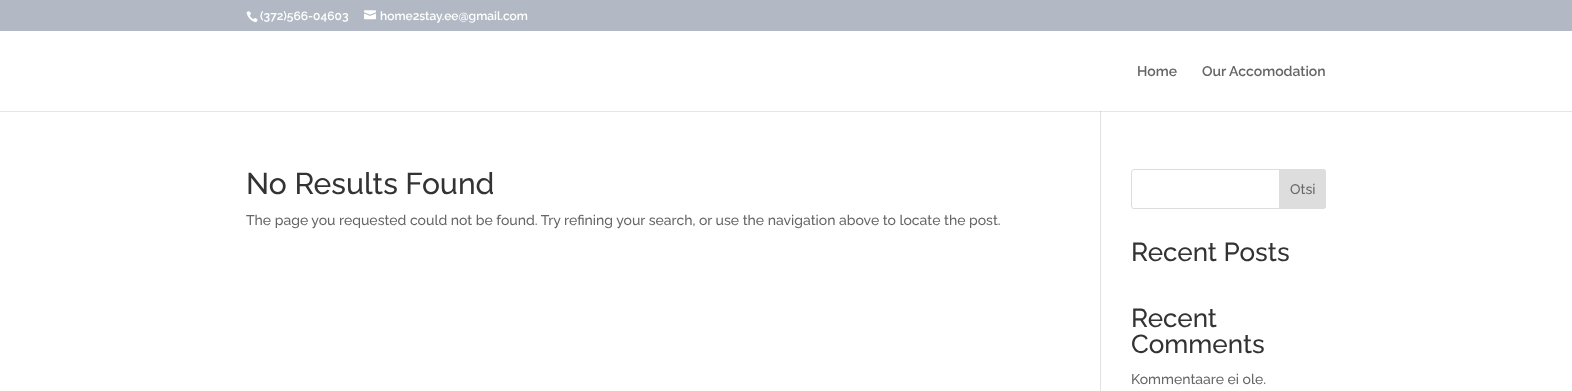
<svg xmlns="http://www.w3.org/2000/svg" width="1572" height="391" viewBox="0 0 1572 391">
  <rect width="100%" height="100%" fill="#fff"/>
  <path d="M0 111h1572v1H0z" fill="#e6e6e6"/>
  <path d="M0 0h1572v31H0z" fill="#b2b9c4"/>
  <image x="246" y="11" width="12" height="12" href="img/1.png"/>
  <image x="364" y="10" width="12" height="10" href="img/2.png"/>
  <path d="M1100 111h1v280H1100z" fill="#e2e2e2"/>
  <path d="M1100 111h1v1H1100z" fill="#cbcbcb"/>
  <rect x="1131.5" y="169.5" width="194" height="39" rx="2.5" fill="none" stroke="#ddd"/>
  <path d="M1279.5 169.5H1323C1324.5 169.5 1325.5 170.5 1325.5 172V206C1325.5 207.5 1324.5 208.5 1323 208.5H1279.5Z" fill="#ddd" stroke="#ddd"/>
  <g font-family="'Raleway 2'" font-size="12" font-weight="100" fill="#fff">
    <text x="260" y="20">(372)566-04603</text>
    <text x="380" y="20">home2stay.ee@gmail.com</text>
  </g>
  <g font-family="'Raleway 2'" font-size="14" font-weight="100" fill="#666">
    <text x="1137" y="76">Home</text>
    <text x="1202" y="76">Our Accomodation</text>
  </g>
  <text x="246" y="194" font-family="Raleway" font-size="30" font-weight="100" fill="#333">No Results Found</text>
  <g font-family="Raleway" font-size="14" font-weight="100" fill="#666">
    <text x="246" y="225">The page you requested could not be found. Try refining your search, or use the navigation above to locate the post.</text>
    <text x="1290" y="194">Otsi</text>
  </g>
  <g font-family="Raleway" font-size="26" font-weight="100" fill="#333">
    <text x="1131" y="261">Recent Posts</text>
    <text x="1131" y="327">Recent</text>
    <text x="1131" y="353">Comments</text>
  </g>
  <text x="1131" y="384" font-family="Raleway" font-size="14" font-weight="100" fill="#666">Kommentaare ei ole.</text>
</svg>
